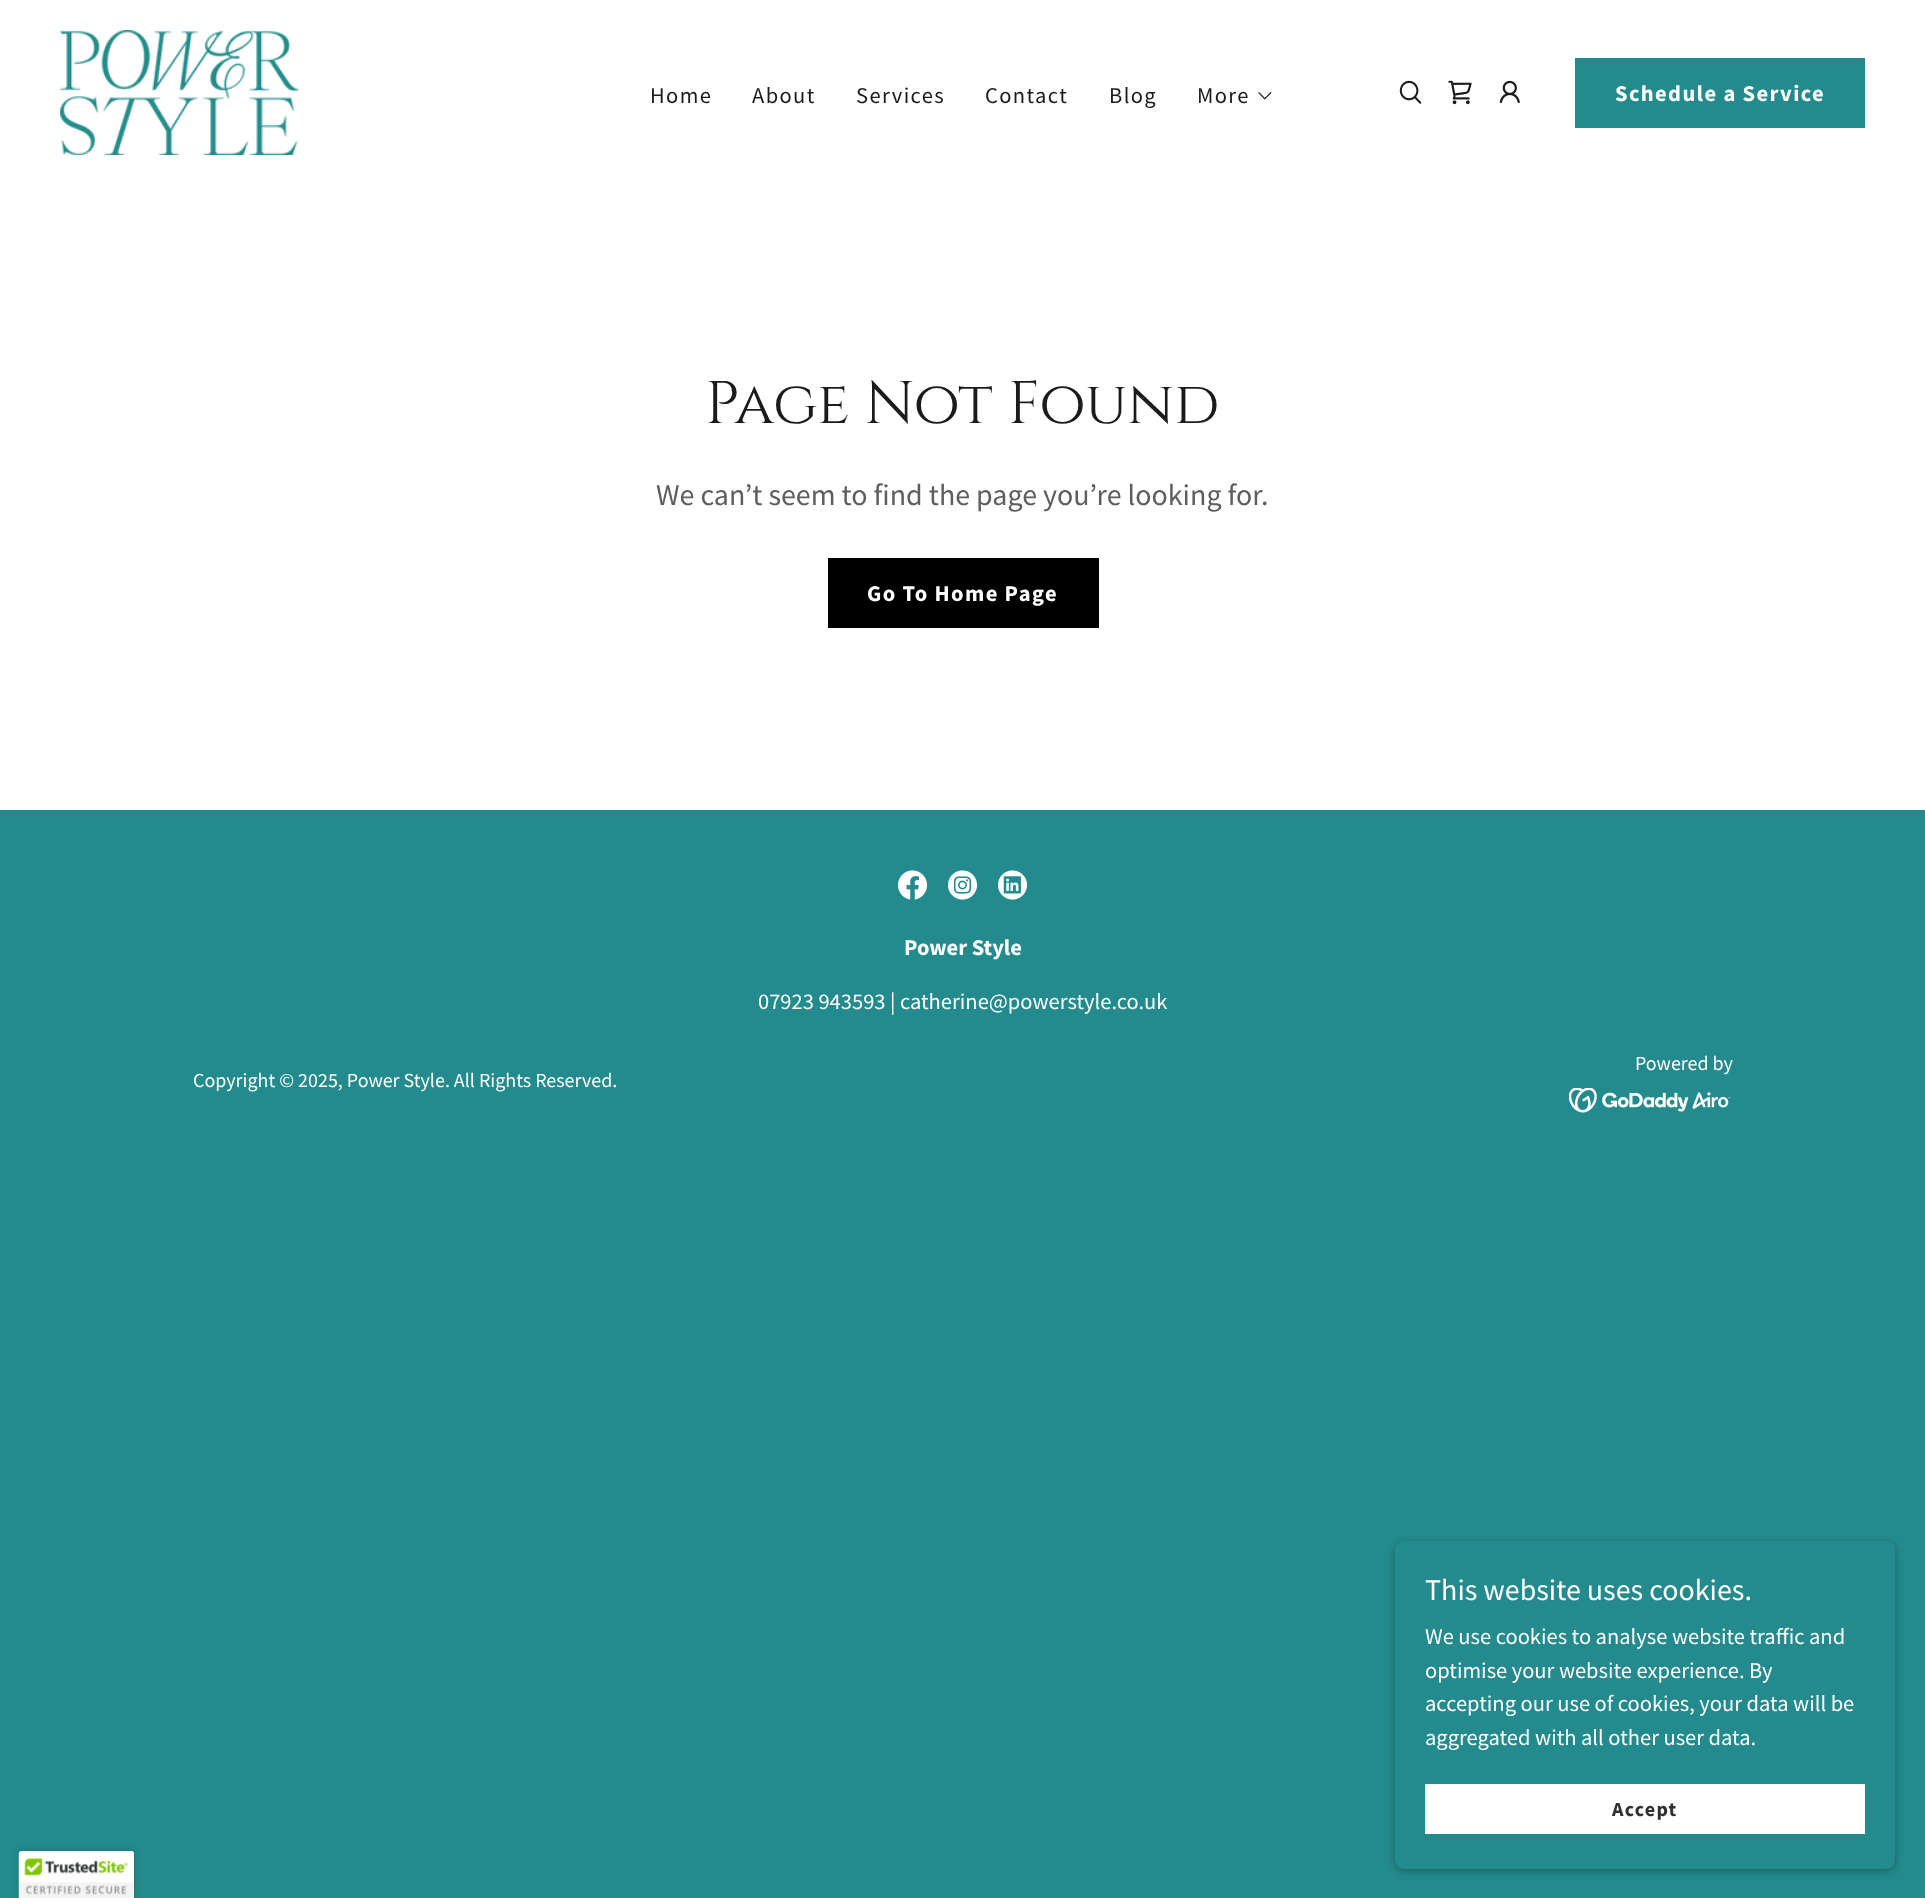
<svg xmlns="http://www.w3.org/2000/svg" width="1925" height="1898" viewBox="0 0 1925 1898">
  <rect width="100%" height="100%" fill="#238b8d"/>
  <path d="M0 0h1925v810H0z" fill="#fff"/>
  <image x="60" y="30" width="239" height="125" href="img/1.png"/>
  <image x="1258" y="92" width="14" height="8" href="img/2.png"/>
  <image x="1399" y="80" width="23" height="24" href="img/3.png"/>
  <image x="1448" y="80" width="24" height="25" href="img/4.png"/>
  <image x="1499" y="80" width="21" height="24" href="img/5.png"/>
  <path d="M1575 58h290v70H1575z" fill="#238b8d"/>
  <path d="M828 558h271v70H828z" fill="#000"/>
  <image x="897" y="870" width="31" height="30" href="img/6.png"/>
  <image x="947" y="870" width="31" height="30" href="img/7.png"/>
  <image x="997" y="870" width="31" height="30" href="img/8.png"/>
  <image x="1569" y="1088" width="162" height="25" href="img/9.png"/>
  <rect x="1395" y="1544" width="500" height="327" rx="9" fill="#0000004d" filter="blur(4px)"/>
  <rect x="1395" y="1541" width="500" height="328" rx="9" fill="#238b8d"/>
  <path d="M1425 1784h440v50H1425z" fill="#fff"/>
  <rect x="19" y="1851" width="115" height="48" rx="2.5" fill="#00000033" filter="blur(3px)"/>
  <path d="M21.5 1851H131.5C133 1851 134 1852 134 1853.5V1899H19V1853.5C19 1852 20 1851 21.5 1851Z" fill="#fff"/>
  <image x="18" y="1851" width="116" height="47" href="img/10.png"/>
  <g font-family="Source Sans Pro" font-size="22.5" letter-spacing="1.4" fill="#1b1b1b">
    <text x="650" y="103">Home</text>
    <text x="752" y="103">About</text>
    <text x="856" y="103">Services</text>
    <text x="985" y="103">Contact</text>
    <text x="1109" y="103">Blog</text>
    <text x="1197" y="103">More</text>
  </g>
  <text x="1615" y="101" font-family="Source Sans Pro" font-size="22.5" font-weight="bold" letter-spacing="1.4" fill="#fff">Schedule a Service</text>
  <text x="705" y="423" font-family="Cinzel" font-size="60" fill="#1b1b1b">Page Not Found</text>
  <text x="656" y="505" font-family="Source Sans Pro" font-size="30" fill="#5e5e5e">We can’t seem to find the page you’re looking for.</text>
  <text x="867" y="601" font-family="Source Sans Pro" font-size="22.5" font-weight="bold" letter-spacing="1.4" fill="#fff">Go To Home Page</text>
  <text x="904" y="955" font-family="Source Sans Pro" font-size="22.5" font-weight="bold" fill="#fff">Power Style</text>
  <text x="758" y="1009" font-family="Source Sans Pro" font-size="22.5" fill="#fff">07923 943593 | catherine@powerstyle.co.uk</text>
  <g font-family="Source Sans Pro" font-size="20" fill="#fff">
    <text x="1635" y="1070">Powered by</text>
    <text x="193" y="1087">Copyright © 2025, Power Style. All Rights Reserved.</text>
  </g>
  <text x="1425" y="1600" font-family="Source Sans Pro" font-size="30" fill="#fff">This website uses cookies.</text>
  <g font-family="Source Sans Pro" font-size="22.5" fill="#fff">
    <text x="1425" y="1644">We use cookies to analyse website traffic and</text>
    <text x="1425" y="1678">optimise your website experience. By</text>
    <text x="1425" y="1711">accepting our use of cookies, your data will be</text>
    <text x="1425" y="1745">aggregated with all other user data.</text>
  </g>
  <text x="1612" y="1816" font-family="Source Sans Pro" font-size="20" font-weight="bold" letter-spacing="1.25" fill="#303030">Accept</text>
</svg>
